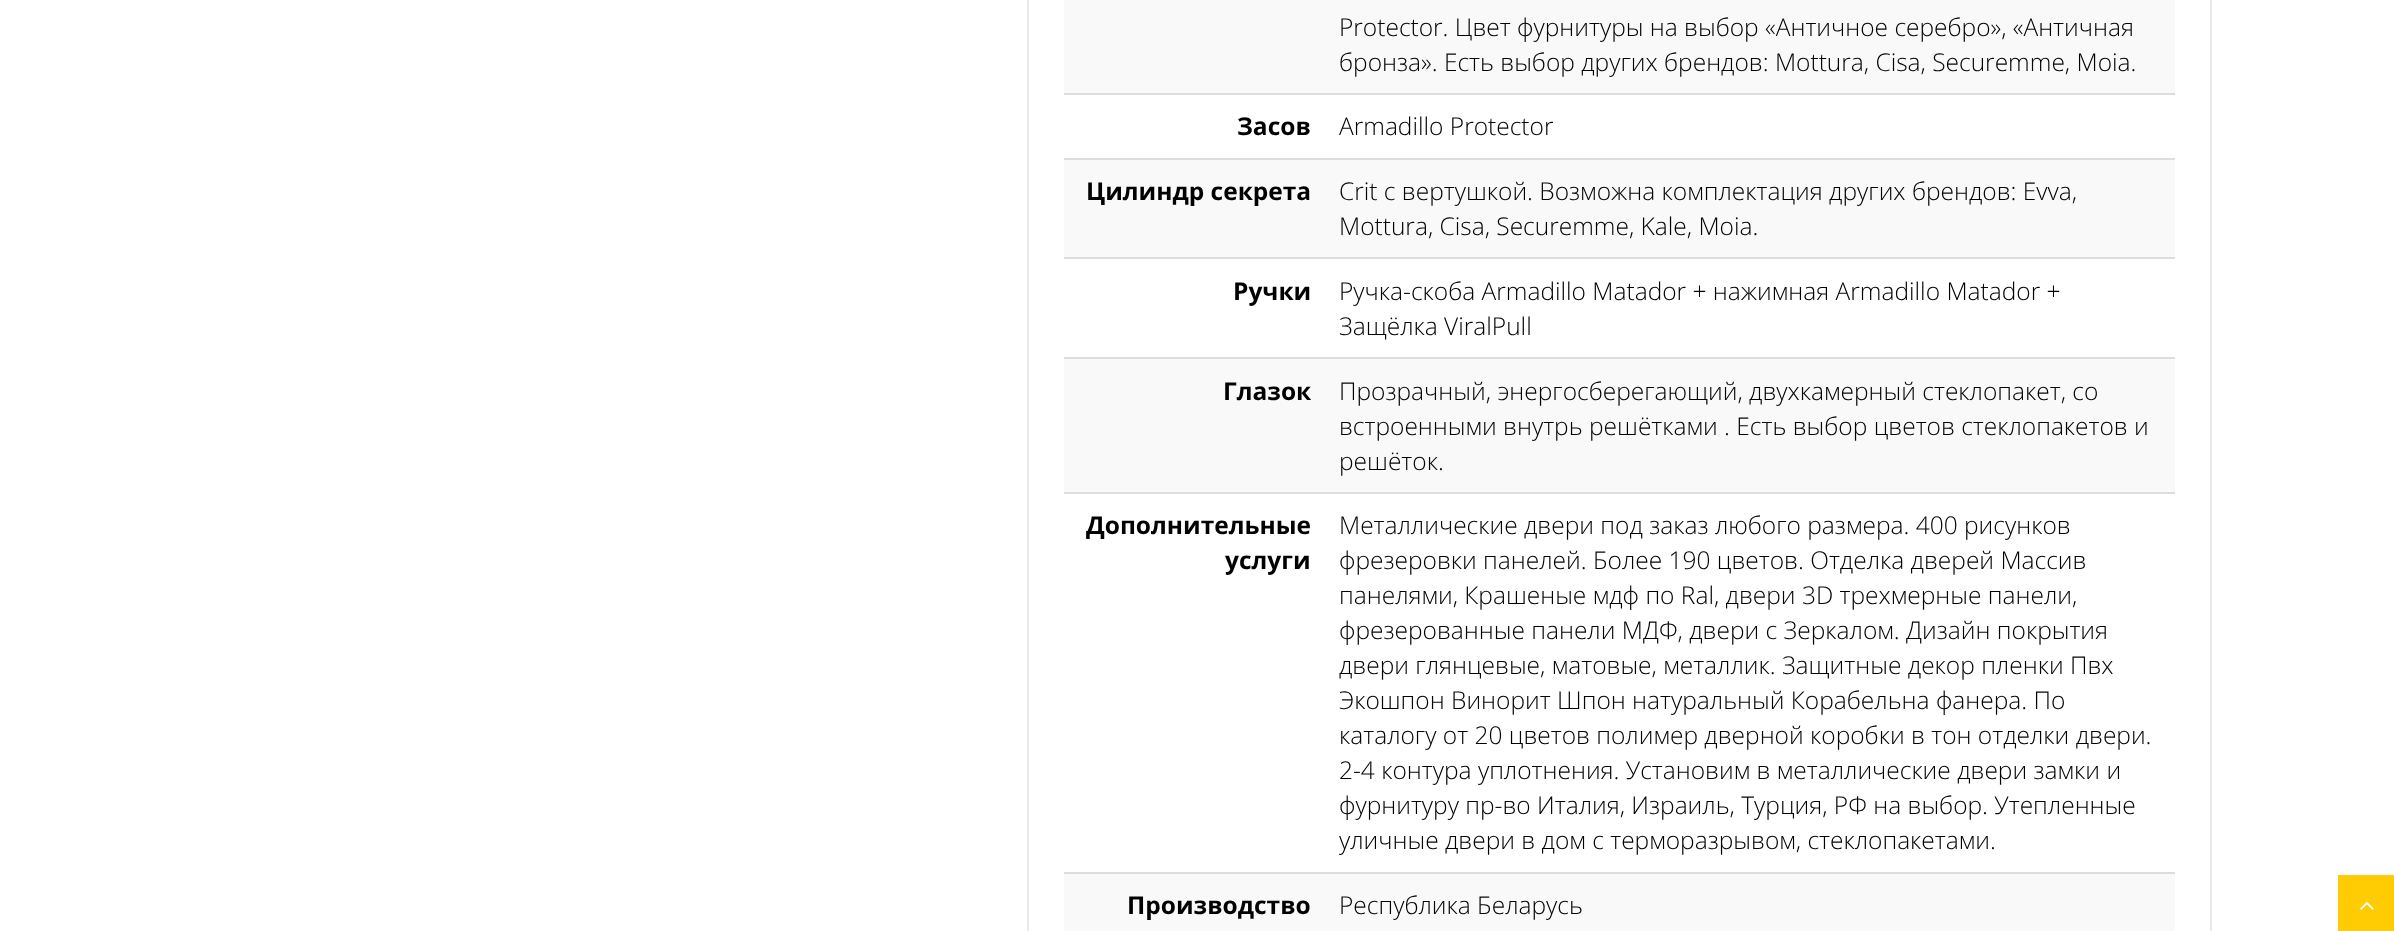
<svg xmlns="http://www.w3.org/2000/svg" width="2394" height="931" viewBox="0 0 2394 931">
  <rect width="100%" height="100%" fill="#fff"/>
  <path d="M1028 -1h1183v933H1028z" fill="none" stroke="#e9e9e9" stroke-width="2"/>
  <path d="M1064 0h1111v93H1064z" fill="#f9f9f9"/>
  <path d="M1064 93h1111v2H1064z" fill="#ddd"/>
  <path d="M1064 160h1111v97H1064z" fill="#f9f9f9"/>
  <path d="M1064 158h1111v2H1064z" fill="#ddd"/>
  <path d="M1064 257h1111v2H1064z" fill="#ddd"/>
  <path d="M1064 359h1111v133H1064z" fill="#f9f9f9"/>
  <path d="M1064 357h1111v2H1064z" fill="#ddd"/>
  <path d="M1064 492h1111v2H1064z" fill="#ddd"/>
  <path d="M1064 874h1111v57H1064z" fill="#f9f9f9"/>
  <path d="M1064 872h1111v2H1064z" fill="#ddd"/>
  <path d="M2338 875h56v56H2338z" fill="#ffcc04"/>
  <image x="2360" y="901" width="14" height="9" href="img/1.png"/>
  <g font-family="Open Sans" font-size="24.5" font-weight="300" fill="#000">
    <text x="1339" y="36">Protector. Цвет фурнитуры на выбор «Античное серебро», «Античная</text>
    <text x="1339" y="71">бронза». Есть выбор других брендов: Mottura, Cisa, Securemme, Moia.</text>
  </g>
  <text x="1237" y="135" font-family="Open Sans" font-size="24.5" font-weight="bold" fill="#000">Засов</text>
  <text x="1339" y="135" font-family="Open Sans" font-size="24.5" font-weight="300" fill="#000">Armadillo Protector</text>
  <text x="1086" y="200" font-family="Open Sans" font-size="24.5" font-weight="bold" fill="#000">Цилиндр секрета</text>
  <g font-family="Open Sans" font-size="24.5" font-weight="300" fill="#000">
    <text x="1339" y="200">Crit с вертушкой. Возможна комплектация других брендов: Evva,</text>
    <text x="1339" y="235">Mottura, Cisa, Securemme, Kale, Moia.</text>
  </g>
  <text x="1233" y="300" font-family="Open Sans" font-size="24.5" font-weight="bold" fill="#000">Ручки</text>
  <g font-family="Open Sans" font-size="24.5" font-weight="300" fill="#000">
    <text x="1339" y="300">Ручка-скоба Armadillo Matador + нажимная Armadillo Matador +</text>
    <text x="1339" y="335">Защёлка ViralPull</text>
  </g>
  <text x="1223" y="400" font-family="Open Sans" font-size="24.5" font-weight="bold" fill="#000">Глазок</text>
  <g font-family="Open Sans" font-size="24.5" font-weight="300" fill="#000">
    <text x="1339" y="400">Прозрачный, энергосберегающий, двухкамерный стеклопакет, со</text>
    <text x="1339" y="435">встроенными внутрь решётками . Есть выбор цветов стеклопакетов и</text>
    <text x="1339" y="470">решёток.</text>
  </g>
  <g font-family="Open Sans" font-size="24.5" font-weight="bold" fill="#000">
    <text x="1086" y="534">Дополнительные</text>
    <text x="1225" y="569">услуги</text>
  </g>
  <g font-family="Open Sans" font-size="24.5" font-weight="300" fill="#000">
    <text x="1339" y="534">Металлические двери под заказ любого размера. 400 рисунков</text>
    <text x="1339" y="569">фрезеровки панелей. Более 190 цветов. Отделка дверей Массив</text>
    <text x="1339" y="604">панелями, Крашеные мдф по Ral, двери 3D трехмерные панели,</text>
    <text x="1339" y="639">фрезерованные панели МДФ, двери с Зеркалом. Дизайн покрытия</text>
    <text x="1339" y="674">двери глянцевые, матовые, металлик. Защитные декор пленки Пвх</text>
    <text x="1339" y="709">Экошпон Винорит Шпон натуральный Корабельна фанера. По</text>
    <text x="1339" y="744">каталогу от 20 цветов полимер дверной коробки в тон отделки двери.</text>
    <text x="1339" y="779">2-4 контура уплотнения. Установим в металлические двери замки и</text>
    <text x="1339" y="814">фурнитуру пр-во Италия, Израиль, Турция, РФ на выбор. Утепленные</text>
    <text x="1339" y="849">уличные двери в дом с терморазрывом, стеклопакетами.</text>
  </g>
  <text x="1127" y="914" font-family="Open Sans" font-size="24.5" font-weight="bold" fill="#000">Производство</text>
  <text x="1339" y="914" font-family="Open Sans" font-size="24.5" font-weight="300" fill="#000">Республика Беларусь</text>
</svg>
